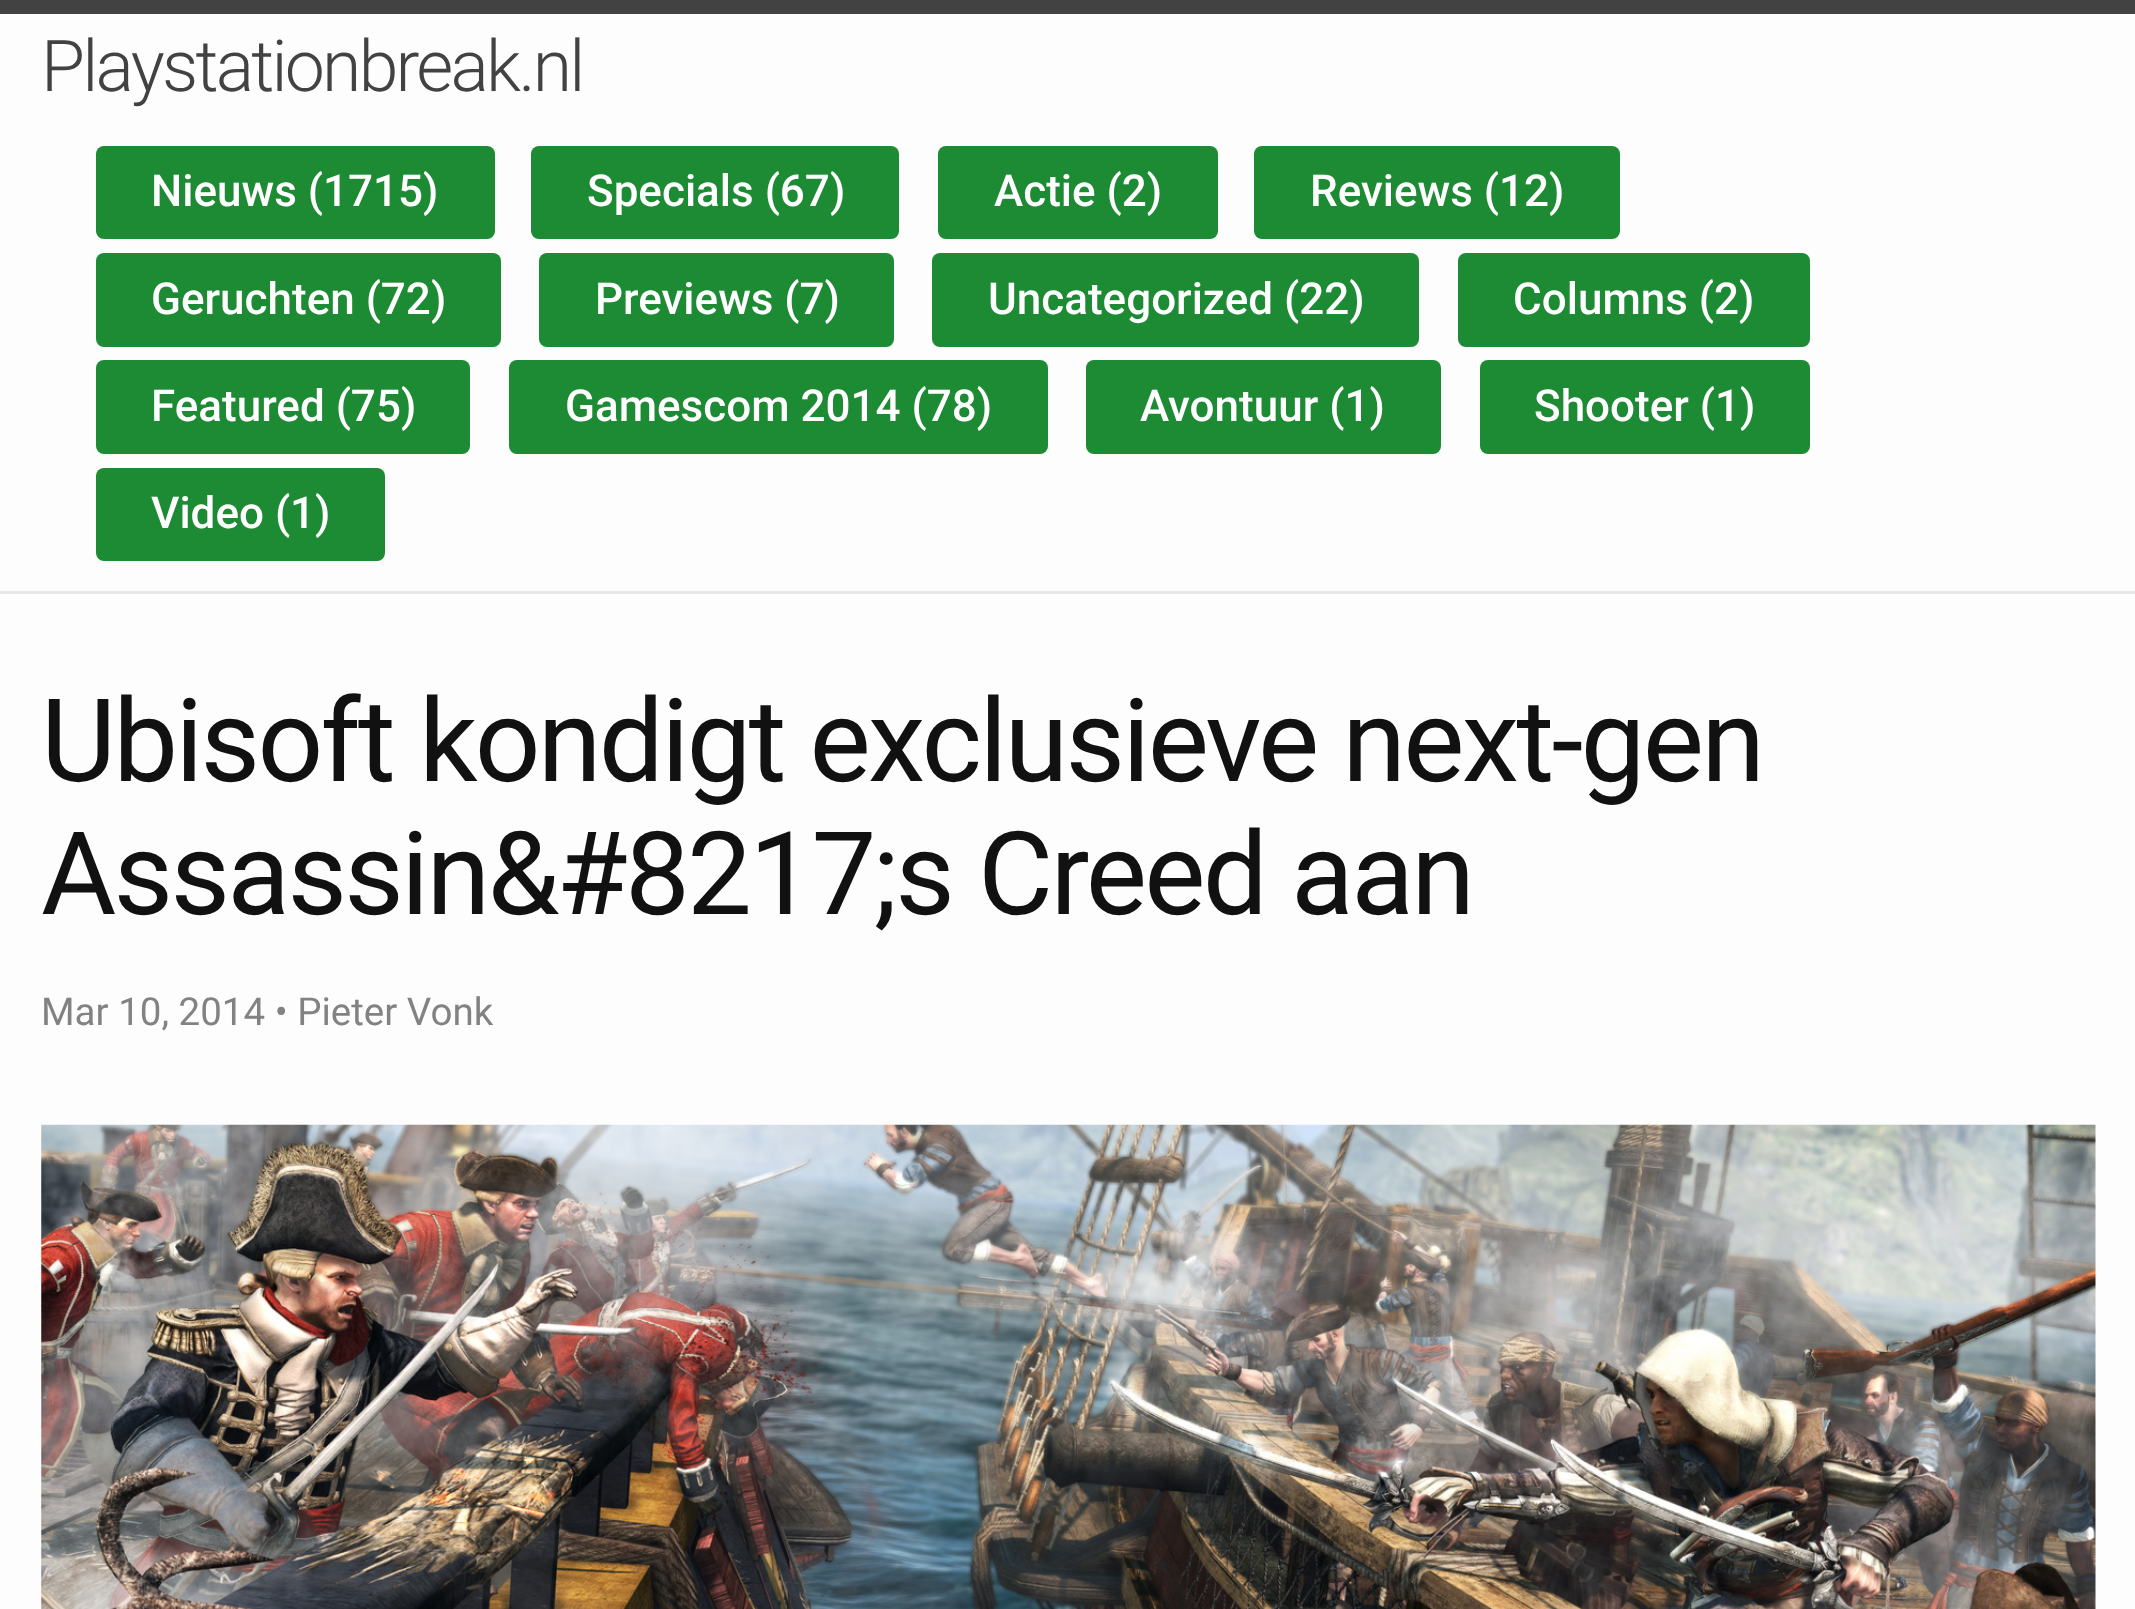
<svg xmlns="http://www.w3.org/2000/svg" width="2135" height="1609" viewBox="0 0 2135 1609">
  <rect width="100%" height="100%" fill="#fdfdfd"/>
  <path d="M0 0h2135v14H0z" fill="#424242"/>
  <path d="M0 591h2135v3H0z" fill="#e8e8e8"/>
  <rect x="96" y="146" width="399" height="93" rx="8" fill="#1d8a34"/>
  <rect x="531" y="146" width="368" height="93" rx="8" fill="#1d8a34"/>
  <rect x="938" y="146" width="280" height="93" rx="8" fill="#1d8a34"/>
  <rect x="1254" y="146" width="366" height="93" rx="8" fill="#1d8a34"/>
  <rect x="96" y="253" width="405" height="94" rx="8" fill="#1d8a34"/>
  <rect x="539" y="253" width="355" height="94" rx="8" fill="#1d8a34"/>
  <rect x="932" y="253" width="487" height="94" rx="8" fill="#1d8a34"/>
  <rect x="1458" y="253" width="352" height="94" rx="8" fill="#1d8a34"/>
  <rect x="96" y="360" width="374" height="94" rx="8" fill="#1d8a34"/>
  <rect x="509" y="360" width="539" height="94" rx="8" fill="#1d8a34"/>
  <rect x="1086" y="360" width="355" height="94" rx="8" fill="#1d8a34"/>
  <rect x="1480" y="360" width="330" height="94" rx="8" fill="#1d8a34"/>
  <rect x="96" y="468" width="289" height="93" rx="8" fill="#1d8a34"/>
  <image x="41" y="1124" width="2055" height="485" href="img/1.png"/>
  <text x="41" y="91" font-family="Roboto" font-size="71.5" font-weight="300" letter-spacing="-2.75" fill="#424242">Playstationbreak.nl</text>
  <g font-family="Roboto" font-size="44" font-weight="500" fill="#fff">
    <text x="151" y="206">Nieuws (1715)</text>
    <text x="587" y="206">Specials (67)</text>
    <text x="994" y="206">Actie (2)</text>
    <text x="1310" y="206">Reviews (12)</text>
    <text x="151" y="314">Geruchten (72)</text>
    <text x="595" y="314">Previews (7)</text>
    <text x="988" y="314">Uncategorized (22)</text>
    <text x="1513" y="314">Columns (2)</text>
    <text x="151" y="421">Featured (75)</text>
    <text x="565" y="421">Gamescom 2014 (78)</text>
    <text x="1140" y="421">Avontuur (1)</text>
    <text x="1534" y="421">Shooter (1)</text>
    <text x="151" y="528">Video (1)</text>
  </g>
  <g font-family="Roboto" font-size="115.5" letter-spacing="-2.75" fill="#111">
    <text x="41" y="781">Ubisoft kondigt exclusieve next-gen</text>
    <text x="41" y="914">Assassin&amp;#8217;s Creed aan</text>
  </g>
  <text x="41" y="1025" font-family="Roboto" font-size="38.5" fill="#828282">Mar 10, 2014 • Pieter Vonk</text>
</svg>
